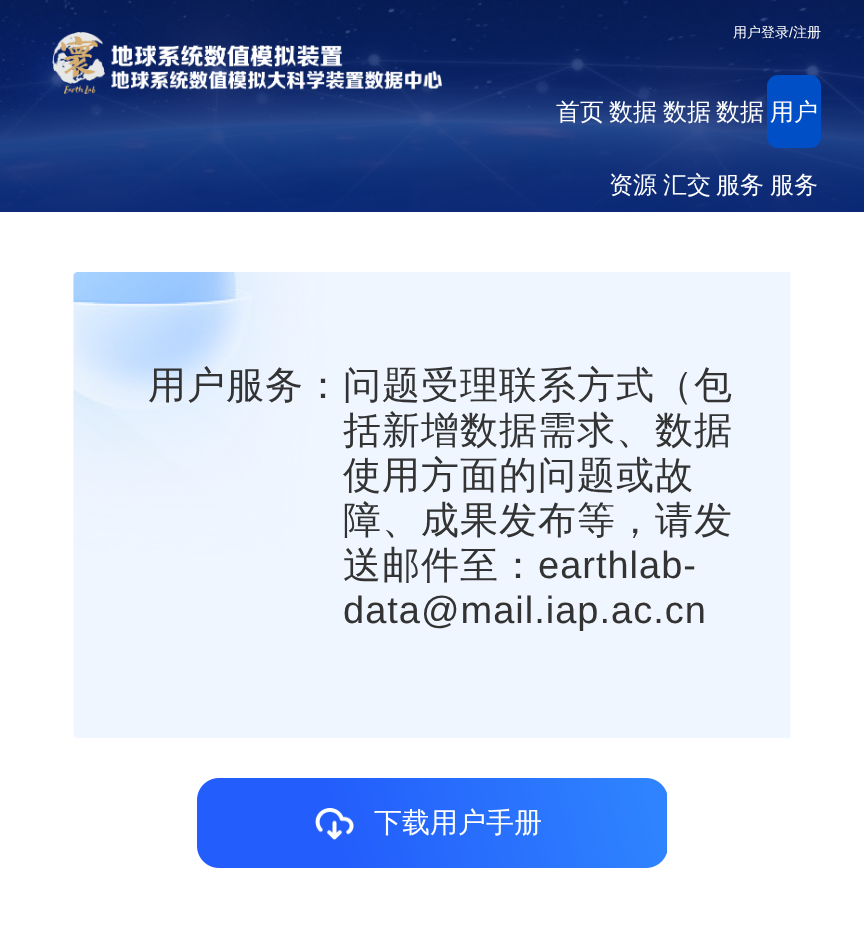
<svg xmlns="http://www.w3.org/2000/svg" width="864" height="942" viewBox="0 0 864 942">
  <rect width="100%" height="100%" fill="#fff"/>
  <image x="0" y="0" width="864" height="212" href="img/1.png"/>
  <image x="52" y="32" width="390" height="62" href="img/2.png"/>
  <rect x="767" y="75" width="54" height="73" rx="11" fill="#004fc7"/>
  <image x="73" y="272" width="718" height="466" href="img/3.png"/>
  <image x="197" y="778" width="470" height="90" href="img/4.png"/>
  <image x="315" y="808" width="39" height="32" href="img/5.png"/>
  <text x="733" y="37" font-family="WenQuanYi Zen Hei" font-size="14" font-weight="500" fill="#fff">用户登录</text>
  <text x="789" y="37" font-family="Liberation Sans" font-size="14" fill="#fff">/</text>
  <text x="793" y="37" font-family="WenQuanYi Zen Hei" font-size="14" font-weight="500" fill="#fff">注册</text>
  <g font-family="WenQuanYi Zen Hei" font-size="24" font-weight="500" fill="#fff">
    <text x="556" y="120">首页</text>
    <text x="609" y="120">数据</text>
    <text x="609" y="193">资源</text>
    <text x="663" y="120">数据</text>
    <text x="663" y="193">汇交</text>
    <text x="716" y="120">数据</text>
    <text x="716" y="193">服务</text>
    <text x="770" y="120">用户</text>
    <text x="770" y="193">服务</text>
  </g>
  <g font-family="WenQuanYi Zen Hei" font-size="38" font-weight="500" letter-spacing="1" fill="#333">
    <text x="148" y="398">用户服务：问题受理联系方式（包</text>
    <text x="343" y="443">括新增数据需求、数据</text>
    <text x="343" y="488">使用方面的问题或故</text>
    <text x="343" y="533">障、成果发布等，请发</text>
    <text x="343" y="578">送邮件至：</text>
  </g>
  <g font-family="Liberation Sans" font-size="38" letter-spacing="1" fill="#333">
    <text x="538" y="578">earthlab-</text>
    <text x="343" y="623">data@mail.iap.ac.cn</text>
  </g>
  <text x="374" y="832" font-family="WenQuanYi Zen Hei" font-size="28" font-weight="500" fill="#fff">下载用户手册</text>
</svg>
